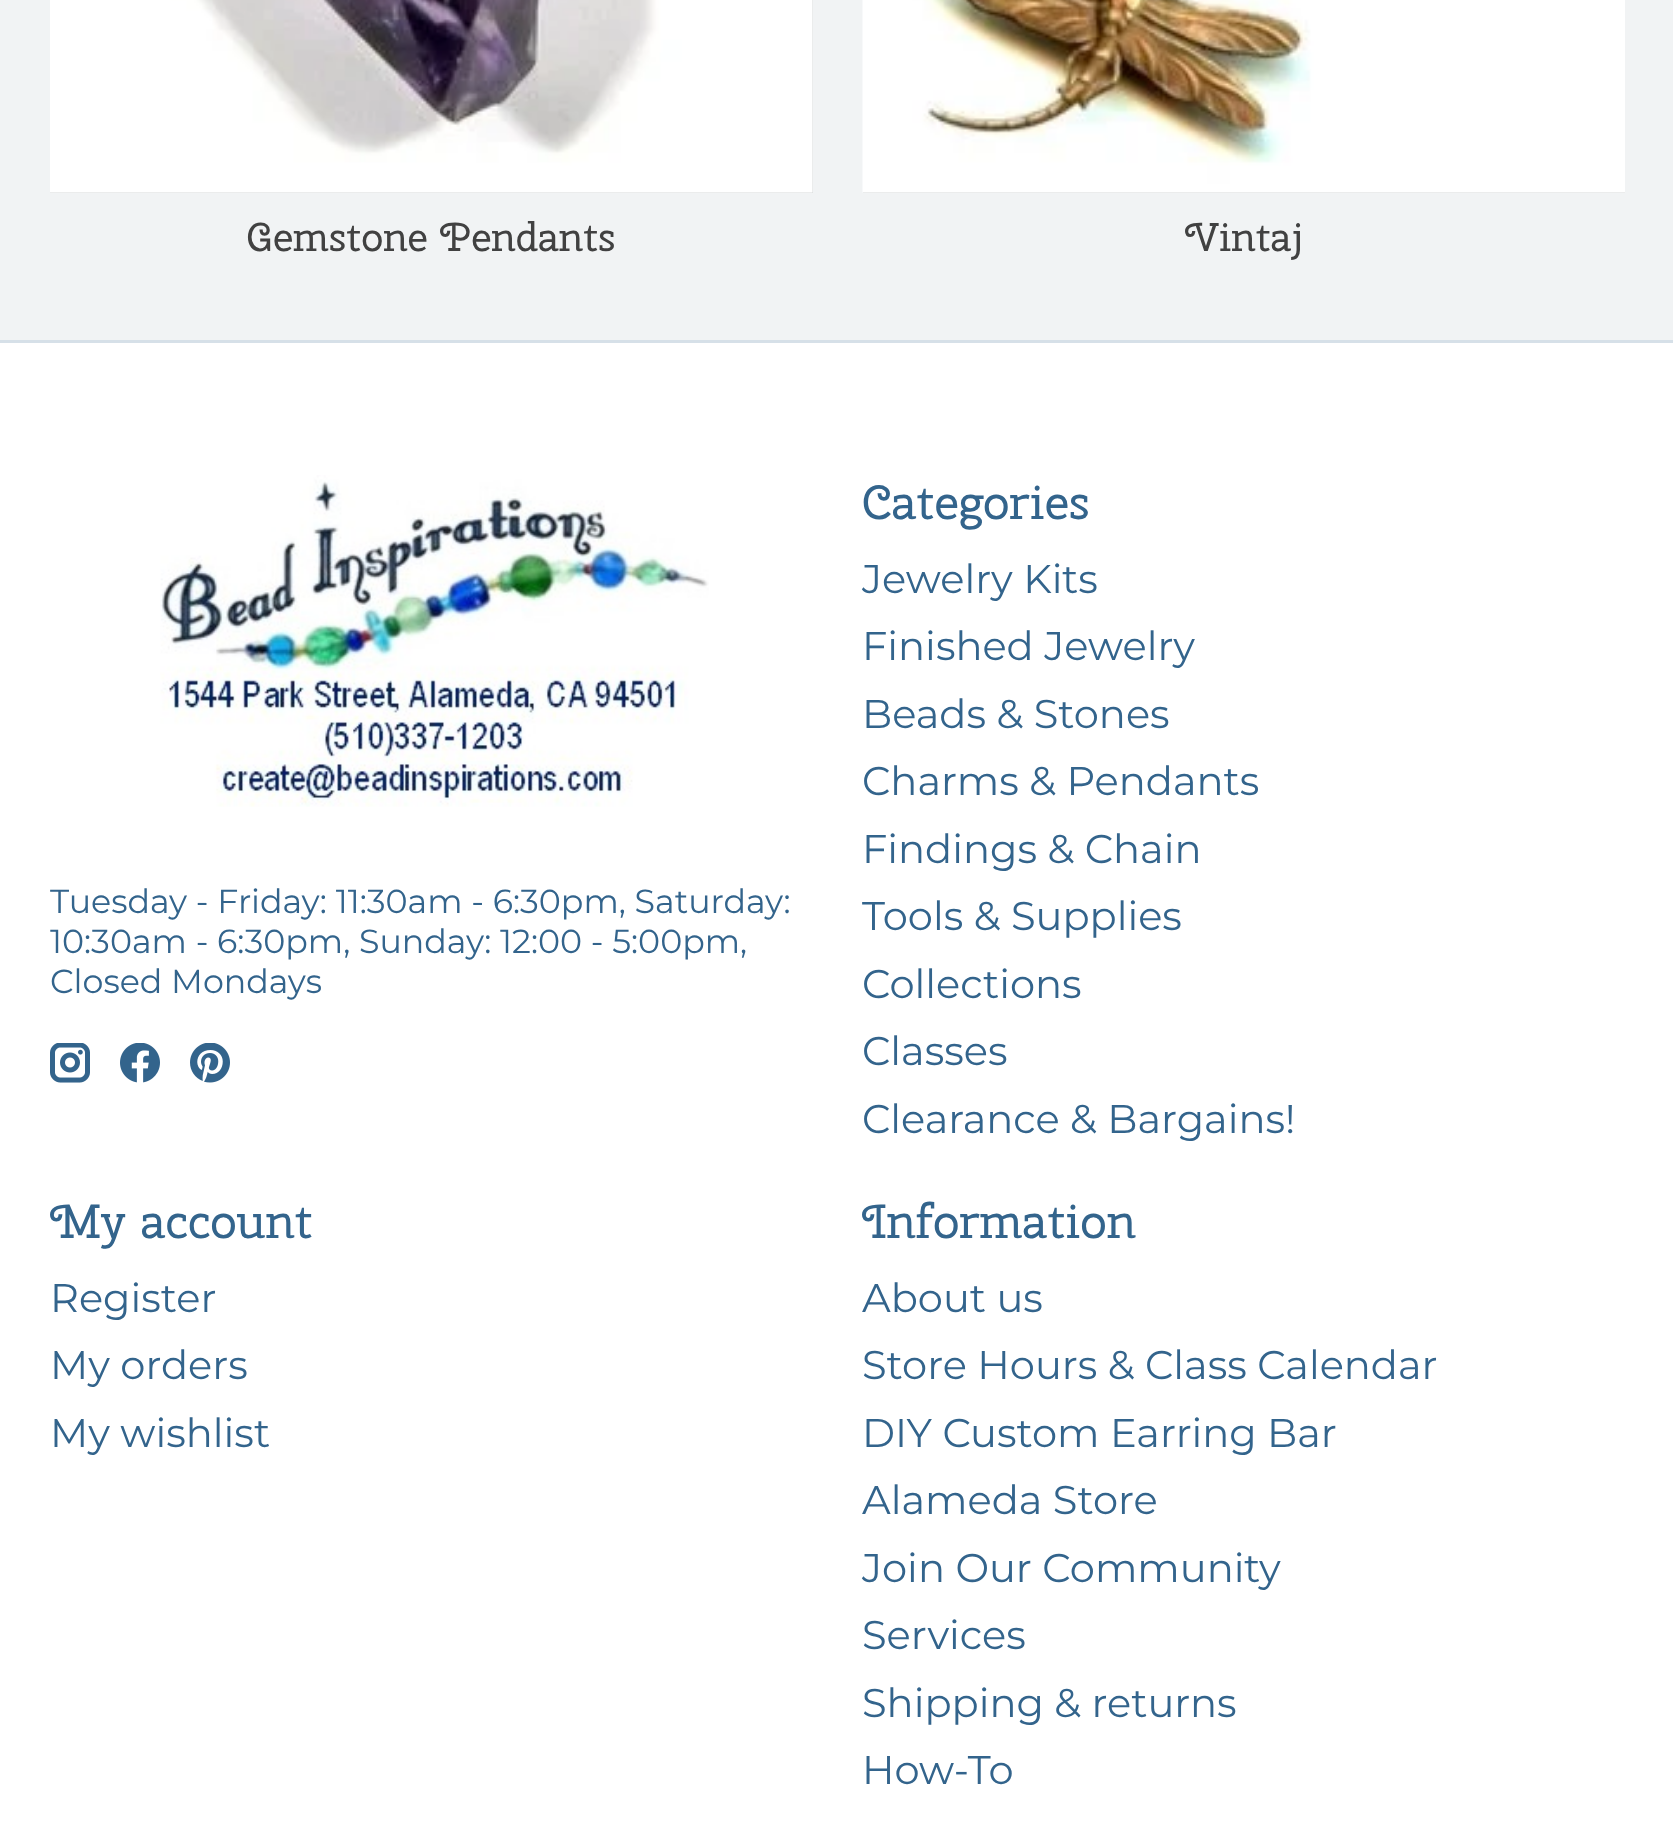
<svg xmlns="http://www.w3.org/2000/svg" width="1673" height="1841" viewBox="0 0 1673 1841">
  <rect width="100%" height="100%" fill="#f1f3f4"/>
  <path d="M50 0h763v193H50z" fill="#d6d9d9"/>
  <image x="50" y="0" width="763" height="193" href="img/1.png"/>
  <path d="M863 192h762v1H863z" fill="#d6d9d9"/>
  <image x="862" y="0" width="763" height="193" href="img/2.png"/>
  <path d="M0 343h1673v1498H0z" fill="#fff"/>
  <path d="M0 340h1673v3H0z" fill="#d6e0e8"/>
  <image x="160" y="475" width="549" height="332" href="img/3.png"/>
  <image x="50" y="1043" width="40" height="40" href="img/4.png"/>
  <image x="120" y="1043" width="40" height="40" href="img/5.png"/>
  <image x="190" y="1043" width="40" height="40" href="img/6.png"/>
  <g font-family="Cherry Swash" font-size="40" fill="#414141">
    <text x="246" y="251">Gemstone Pendants</text>
    <text x="1185" y="251">Vintaj</text>
  </g>
  <g font-family="Montserrat" font-size="33.3" fill="#33648c">
    <text x="50" y="913">Tuesday - Friday: 11:30am - 6:30pm, Saturday:</text>
    <text x="50" y="953">10:30am - 6:30pm, Sunday: 12:00 - 5:00pm,</text>
    <text x="50" y="993">Closed Mondays</text>
  </g>
  <text x="862" y="519" font-family="Cherry Swash" font-size="48" fill="#33648c">Categories</text>
  <g font-family="Montserrat" font-size="40" fill="#33648c">
    <text x="862" y="593">Jewelry Kits</text>
    <text x="862" y="660">Finished Jewelry</text>
    <text x="862" y="728">Beads &amp; Stones</text>
    <text x="862" y="795">Charms &amp; Pendants</text>
    <text x="862" y="863">Findings &amp; Chain</text>
    <text x="862" y="930">Tools &amp; Supplies</text>
    <text x="862" y="998">Collections</text>
    <text x="862" y="1065">Classes</text>
    <text x="862" y="1133">Clearance &amp; Bargains!</text>
  </g>
  <text x="50" y="1238" font-family="Cherry Swash" font-size="48" fill="#33648c">My account</text>
  <g font-family="Montserrat" font-size="40" fill="#33648c">
    <text x="50" y="1312">Register</text>
    <text x="50" y="1379">My orders</text>
    <text x="50" y="1447">My wishlist</text>
  </g>
  <text x="862" y="1238" font-family="Cherry Swash" font-size="48" fill="#33648c">Information</text>
  <g font-family="Montserrat" font-size="40" fill="#33648c">
    <text x="862" y="1312">About us</text>
    <text x="862" y="1379">Store Hours &amp; Class Calendar</text>
    <text x="862" y="1447">DIY Custom Earring Bar</text>
    <text x="862" y="1514">Alameda Store</text>
    <text x="862" y="1582">Join Our Community</text>
    <text x="862" y="1649">Services</text>
    <text x="862" y="1717">Shipping &amp; returns</text>
    <text x="862" y="1784">How-To</text>
  </g>
</svg>
